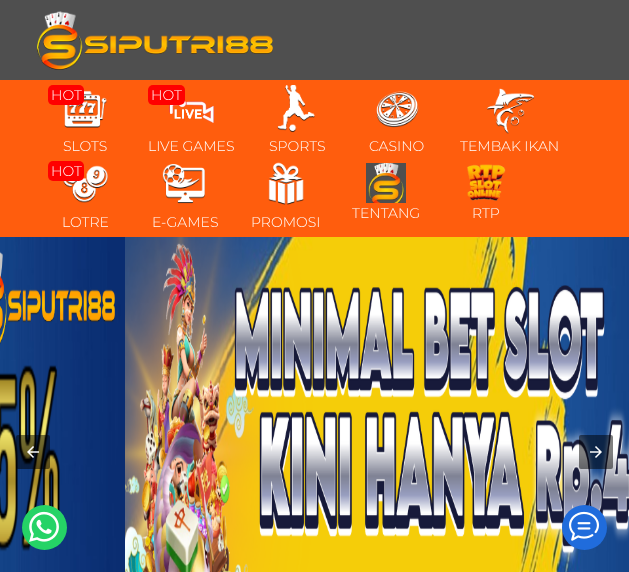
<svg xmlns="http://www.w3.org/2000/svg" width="629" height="572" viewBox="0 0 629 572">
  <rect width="100%" height="100%" fill="#4f4f4f"/>
  <image x="37" y="11" width="236" height="59" href="img/1.png"/>
  <path d="M0 80h629v157H0z" fill="#ff5d0d"/>
  <image x="64" y="90" width="43" height="38" href="img/2.png"/>
  <rect x="48" y="85" width="36" height="20" rx="5" fill="#f00"/>
  <image x="169" y="100" width="45" height="23" href="img/3.png"/>
  <rect x="148" y="85" width="37" height="20" rx="5" fill="#f00"/>
  <image x="277" y="85" width="38" height="48" href="img/4.png"/>
  <image x="376" y="91" width="43" height="37" href="img/5.png"/>
  <image x="487" y="88" width="47" height="46" href="img/6.png"/>
  <image x="63" y="165" width="45" height="38" href="img/7.png"/>
  <rect x="48" y="161" width="36" height="20" rx="5" fill="#f00"/>
  <image x="366" y="163" width="40" height="40" href="img/8.png"/>
  <image x="467" y="164" width="39" height="37" href="img/9.png"/>
  <image x="162" y="164" width="43" height="40" href="img/10.png"/>
  <image x="268" y="162" width="36" height="43" href="img/11.png"/>
  <image x="0" y="237" width="125" height="335" href="img/12.png"/>
  <image x="125" y="237" width="504" height="335" href="img/13.png"/>
  <rect x="16" y="435" width="34" height="34" rx="2" fill="#00000080"/>
  <image x="27" y="446" width="12" height="12" href="img/14.png"/>
  <rect x="579" y="435" width="34" height="34" rx="2" fill="#00000080"/>
  <image x="590" y="446" width="12" height="12" href="img/15.png"/>
  <circle cx="44.5" cy="527.5" r="22.5" fill="#25d366"/>
  <image x="29" y="511" width="30" height="31" href="img/16.png"/>
  <circle cx="584.5" cy="527.5" r="22.5" fill="#206cdc"/>
  <image x="569" y="511" width="30" height="30" href="img/17.png"/>
  <g font-family="Montserrat" font-size="14" font-weight="300" fill="#fff">
    <text x="51" y="100">HOT</text>
    <text x="63" y="151">SLOTS</text>
    <text x="151" y="100">HOT</text>
    <text x="148" y="151">LIVE GAMES</text>
    <text x="269" y="151">SPORTS</text>
    <text x="369" y="151">CASINO</text>
    <text x="460" y="151">TEMBAK IKAN</text>
    <text x="51" y="176">HOT</text>
    <text x="62" y="227">LOTRE</text>
    <text x="352" y="218">TENTANG</text>
    <text x="472" y="218">RTP</text>
    <text x="152" y="227">E-GAMES</text>
    <text x="251" y="227">PROMOSI</text>
  </g>
</svg>
